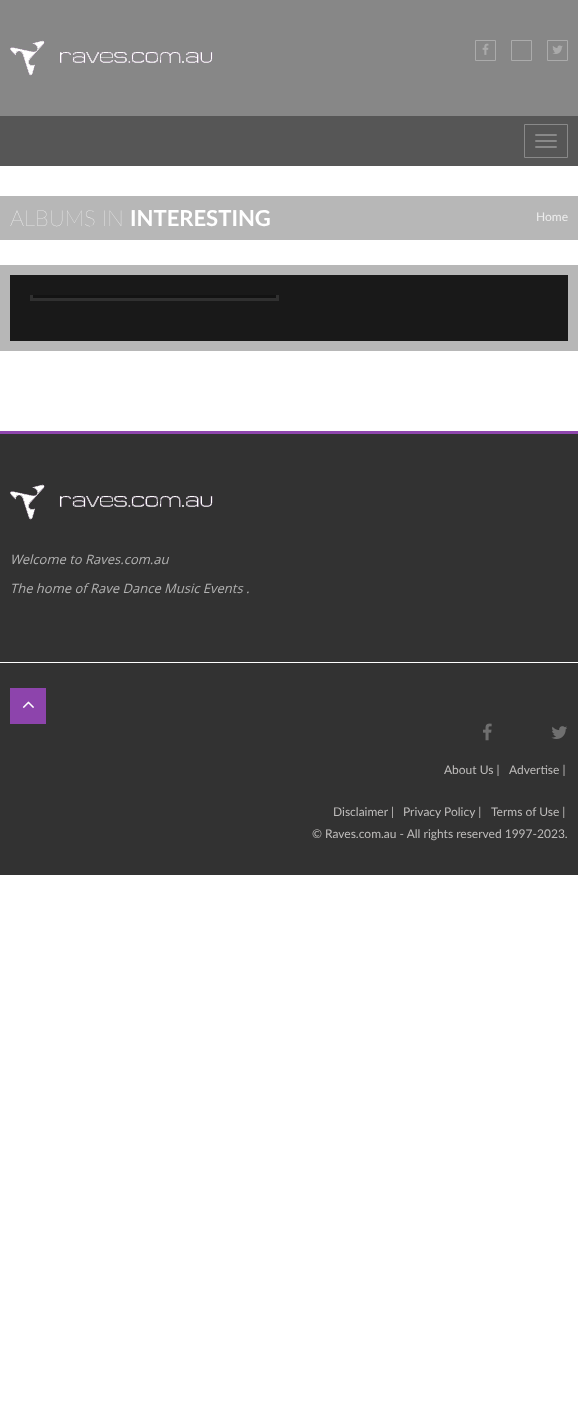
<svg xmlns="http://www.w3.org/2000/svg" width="578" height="1407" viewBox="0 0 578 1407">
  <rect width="100%" height="100%" fill="#fff"/>
  <path d="M0 0h578v116H0z" fill="#878787"/>
  <image x="10" y="40" width="203" height="36" href="img/1.png"/>
  <path d="M475.5 40.5h20v20H475.5z" fill="none" stroke="#ababab"/>
  <image x="482" y="43" width="7" height="12" href="img/2.png"/>
  <path d="M511.5 40.5h20v20H511.5z" fill="none" stroke="#ababab"/>
  <path d="M547.5 40.5h20v20H547.5z" fill="none" stroke="#ababab"/>
  <image x="552" y="45" width="11" height="9" href="img/3.png"/>
  <path d="M0 116h578v50H0z" fill="#565656"/>
  <path d="M524.5 124.5h43v33H524.5z" fill="none" stroke="#898989"/>
  <rect x="535" y="134" width="22" height="2" rx="1" fill="#898989"/>
  <rect x="535" y="140" width="22" height="2" rx="1" fill="#898989"/>
  <rect x="535" y="146" width="22" height="2" rx="1" fill="#898989"/>
  <path d="M0 196h578v44H0z" fill="#b7b7b7"/>
  <path d="M0 265h578v86H0z" fill="#b7b7b7"/>
  <path d="M10 275h558v66H10z" fill="#191919"/>
  <path d="M30 295h249v6H30z" fill="#303030"/>
  <path d="M33 295h243v3H33z" fill="#131313"/>
  <path d="M0 431h578v3H0z" fill="#8f46ae"/>
  <path d="M0 434h578v228H0z" fill="#323232"/>
  <image x="10" y="484" width="203" height="36" href="img/4.png"/>
  <path d="M0 663h578v212H0z" fill="#323232"/>
  <path d="M10 688h36v36H10z" fill="#8d44ac"/>
  <image x="22" y="701" width="12" height="7" href="img/5.png"/>
  <image x="483" y="723" width="9" height="18" href="img/6.png"/>
  <image x="551" y="726" width="16" height="13" href="img/7.png"/>
  <text x="10" y="226" font-family="Lato" font-size="22" font-weight="200" fill="#fff">ALBUMS IN</text>
  <text x="130" y="226" font-family="Lato" font-size="22" font-weight="bold" fill="#fff">INTERESTING</text>
  <text x="536" y="221" font-family="Lato" font-size="12" fill="#ededed">Home</text>
  <g font-family="Open Sans" font-size="13" font-style="italic" fill="#b2b2b2">
    <text x="10" y="564">Welcome to Raves.com.au</text>
    <text x="10" y="593">The home of Rave Dance Music Events .</text>
  </g>
  <g font-family="Lato" font-size="12" fill="#bebcbb">
    <text x="444" y="774">About Us |</text>
    <text x="509" y="774">Advertise |</text>
    <text x="333" y="816">Disclaimer |</text>
    <text x="403" y="816">Privacy Policy |</text>
    <text x="491" y="816">Terms of Use |</text>
    <text x="312" y="838">© Raves.com.au - All rights reserved 1997-2023.</text>
  </g>
</svg>
